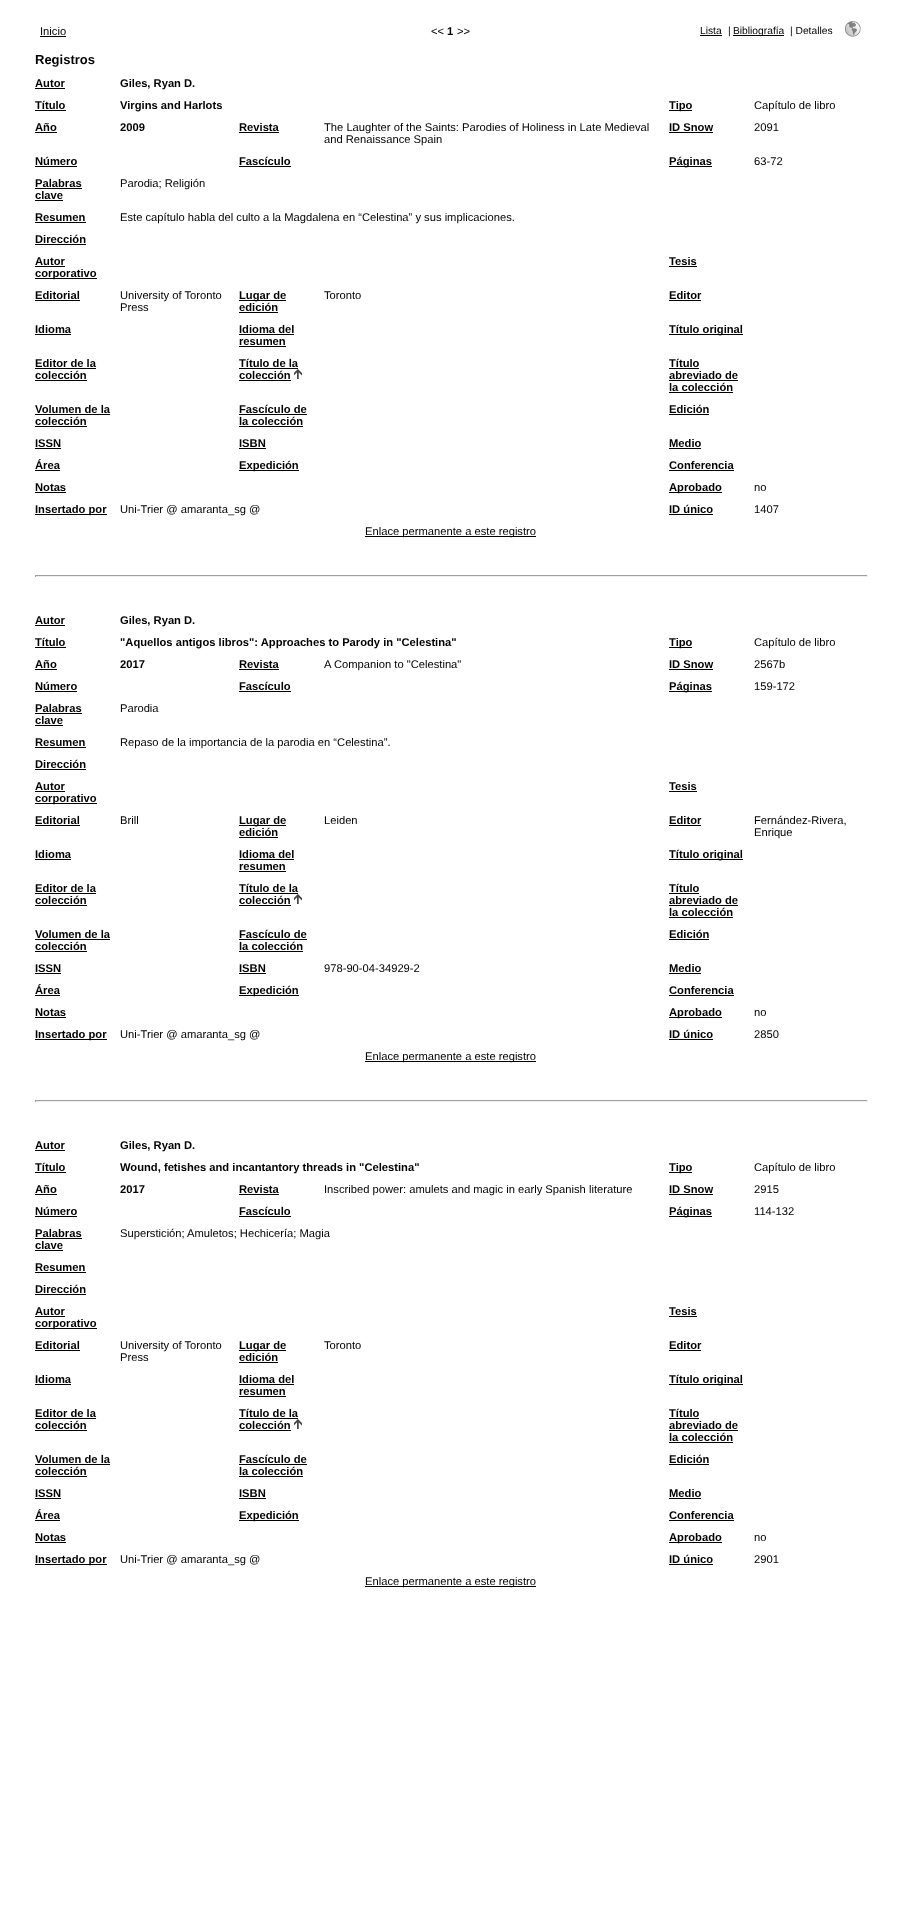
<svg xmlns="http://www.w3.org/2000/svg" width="901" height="1910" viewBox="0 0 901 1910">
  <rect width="100%" height="100%" fill="#fff"/>
  <path d="M40 36h26v1H40z" fill="#000"/>
  <path d="M700 35h22v1H700z" fill="#000"/>
  <path d="M733 35h51v1H733z" fill="#000"/>
  <image x="845" y="21" width="16" height="16" href="img/1.png"/>
  <path d="M35 88h30v1H35z" fill="#000"/>
  <path d="M35 110h31v1H35z" fill="#000"/>
  <path d="M669 110h23v1H669z" fill="#000"/>
  <path d="M35 132h22v1H35z" fill="#000"/>
  <path d="M239 132h40v1H239z" fill="#000"/>
  <path d="M669 132h44v1H669z" fill="#000"/>
  <path d="M35 166h42v1H35z" fill="#000"/>
  <path d="M239 166h52v1H239z" fill="#000"/>
  <path d="M669 166h43v1H669z" fill="#000"/>
  <path d="M35 188h47v1H35z" fill="#000"/>
  <path d="M35 200h28v1H35z" fill="#000"/>
  <path d="M35 222h51v1H35z" fill="#000"/>
  <path d="M35 244h51v1H35z" fill="#000"/>
  <path d="M35 266h30v1H35z" fill="#000"/>
  <path d="M35 278h62v1H35z" fill="#000"/>
  <path d="M669 266h28v1H669z" fill="#000"/>
  <path d="M35 300h45v1H35z" fill="#000"/>
  <path d="M239 300h47v1H239z" fill="#000"/>
  <path d="M239 312h39v1H239z" fill="#000"/>
  <path d="M669 300h32v1H669z" fill="#000"/>
  <path d="M35 334h36v1H35z" fill="#000"/>
  <path d="M239 334h55v1H239z" fill="#000"/>
  <path d="M239 346h47v1H239z" fill="#000"/>
  <path d="M669 334h74v1H669z" fill="#000"/>
  <path d="M35 368h61v1H35z" fill="#000"/>
  <path d="M35 380h52v1H35z" fill="#000"/>
  <path d="M239 368h59v1H239z" fill="#000"/>
  <path d="M239 380h52v1H239z" fill="#000"/>
  <image x="294" y="369" width="8" height="10" href="img/2.png"/>
  <path d="M669 368h30v1H669z" fill="#000"/>
  <path d="M669 380h69v1H669z" fill="#000"/>
  <path d="M669 392h64v1H669z" fill="#000"/>
  <path d="M35 414h75v1H35z" fill="#000"/>
  <path d="M35 426h52v1H35z" fill="#000"/>
  <path d="M239 414h68v1H239z" fill="#000"/>
  <path d="M239 426h64v1H239z" fill="#000"/>
  <path d="M669 414h40v1H669z" fill="#000"/>
  <path d="M35 448h26v1H35z" fill="#000"/>
  <path d="M239 448h27v1H239z" fill="#000"/>
  <path d="M669 448h32v1H669z" fill="#000"/>
  <path d="M35 470h25v1H35z" fill="#000"/>
  <path d="M239 470h60v1H239z" fill="#000"/>
  <path d="M669 470h65v1H669z" fill="#000"/>
  <path d="M35 492h31v1H35z" fill="#000"/>
  <path d="M669 492h53v1H669z" fill="#000"/>
  <path d="M35 514h72v1H35z" fill="#000"/>
  <path d="M669 514h44v1H669z" fill="#000"/>
  <path d="M365 536h171v1H365z" fill="#000"/>
  <path d="M35 575h833v1H35z" fill="#9f9f9f"/>
  <path d="M867 575h1v2H867z" fill="#eee"/>
  <path d="M35 576h833v1H35z" fill="#eee"/>
  <path d="M35 575h1v2H35z" fill="#9f9f9f"/>
  <path d="M35 625h30v1H35z" fill="#000"/>
  <path d="M35 647h31v1H35z" fill="#000"/>
  <path d="M669 647h23v1H669z" fill="#000"/>
  <path d="M35 669h22v1H35z" fill="#000"/>
  <path d="M239 669h40v1H239z" fill="#000"/>
  <path d="M669 669h44v1H669z" fill="#000"/>
  <path d="M35 691h42v1H35z" fill="#000"/>
  <path d="M239 691h52v1H239z" fill="#000"/>
  <path d="M669 691h43v1H669z" fill="#000"/>
  <path d="M35 713h47v1H35z" fill="#000"/>
  <path d="M35 725h28v1H35z" fill="#000"/>
  <path d="M35 747h51v1H35z" fill="#000"/>
  <path d="M35 769h51v1H35z" fill="#000"/>
  <path d="M35 791h30v1H35z" fill="#000"/>
  <path d="M35 803h62v1H35z" fill="#000"/>
  <path d="M669 791h28v1H669z" fill="#000"/>
  <path d="M35 825h45v1H35z" fill="#000"/>
  <path d="M239 825h47v1H239z" fill="#000"/>
  <path d="M239 837h39v1H239z" fill="#000"/>
  <path d="M669 825h32v1H669z" fill="#000"/>
  <path d="M35 859h36v1H35z" fill="#000"/>
  <path d="M239 859h55v1H239z" fill="#000"/>
  <path d="M239 871h47v1H239z" fill="#000"/>
  <path d="M669 859h74v1H669z" fill="#000"/>
  <path d="M35 893h61v1H35z" fill="#000"/>
  <path d="M35 905h52v1H35z" fill="#000"/>
  <path d="M239 893h59v1H239z" fill="#000"/>
  <path d="M239 905h52v1H239z" fill="#000"/>
  <image x="294" y="894" width="8" height="10" href="img/2.png"/>
  <path d="M669 893h30v1H669z" fill="#000"/>
  <path d="M669 905h69v1H669z" fill="#000"/>
  <path d="M669 917h64v1H669z" fill="#000"/>
  <path d="M35 939h75v1H35z" fill="#000"/>
  <path d="M35 951h52v1H35z" fill="#000"/>
  <path d="M239 939h68v1H239z" fill="#000"/>
  <path d="M239 951h64v1H239z" fill="#000"/>
  <path d="M669 939h40v1H669z" fill="#000"/>
  <path d="M35 973h26v1H35z" fill="#000"/>
  <path d="M239 973h27v1H239z" fill="#000"/>
  <path d="M669 973h32v1H669z" fill="#000"/>
  <path d="M35 995h25v1H35z" fill="#000"/>
  <path d="M239 995h60v1H239z" fill="#000"/>
  <path d="M669 995h65v1H669z" fill="#000"/>
  <path d="M35 1017h31v1H35z" fill="#000"/>
  <path d="M669 1017h53v1H669z" fill="#000"/>
  <path d="M35 1039h72v1H35z" fill="#000"/>
  <path d="M669 1039h44v1H669z" fill="#000"/>
  <path d="M365 1061h171v1H365z" fill="#000"/>
  <path d="M35 1100h833v1H35z" fill="#9f9f9f"/>
  <path d="M867 1100h1v2H867z" fill="#eee"/>
  <path d="M35 1101h833v1H35z" fill="#eee"/>
  <path d="M35 1100h1v2H35z" fill="#9f9f9f"/>
  <path d="M35 1150h30v1H35z" fill="#000"/>
  <path d="M35 1172h31v1H35z" fill="#000"/>
  <path d="M669 1172h23v1H669z" fill="#000"/>
  <path d="M35 1194h22v1H35z" fill="#000"/>
  <path d="M239 1194h40v1H239z" fill="#000"/>
  <path d="M669 1194h44v1H669z" fill="#000"/>
  <path d="M35 1216h42v1H35z" fill="#000"/>
  <path d="M239 1216h52v1H239z" fill="#000"/>
  <path d="M669 1216h43v1H669z" fill="#000"/>
  <path d="M35 1238h47v1H35z" fill="#000"/>
  <path d="M35 1250h28v1H35z" fill="#000"/>
  <path d="M35 1272h51v1H35z" fill="#000"/>
  <path d="M35 1294h51v1H35z" fill="#000"/>
  <path d="M35 1316h30v1H35z" fill="#000"/>
  <path d="M35 1328h62v1H35z" fill="#000"/>
  <path d="M669 1316h28v1H669z" fill="#000"/>
  <path d="M35 1350h45v1H35z" fill="#000"/>
  <path d="M239 1350h47v1H239z" fill="#000"/>
  <path d="M239 1362h39v1H239z" fill="#000"/>
  <path d="M669 1350h32v1H669z" fill="#000"/>
  <path d="M35 1384h36v1H35z" fill="#000"/>
  <path d="M239 1384h55v1H239z" fill="#000"/>
  <path d="M239 1396h47v1H239z" fill="#000"/>
  <path d="M669 1384h74v1H669z" fill="#000"/>
  <path d="M35 1418h61v1H35z" fill="#000"/>
  <path d="M35 1430h52v1H35z" fill="#000"/>
  <path d="M239 1418h59v1H239z" fill="#000"/>
  <path d="M239 1430h52v1H239z" fill="#000"/>
  <image x="294" y="1419" width="8" height="10" href="img/2.png"/>
  <path d="M669 1418h30v1H669z" fill="#000"/>
  <path d="M669 1430h69v1H669z" fill="#000"/>
  <path d="M669 1442h64v1H669z" fill="#000"/>
  <path d="M35 1464h75v1H35z" fill="#000"/>
  <path d="M35 1476h52v1H35z" fill="#000"/>
  <path d="M239 1464h68v1H239z" fill="#000"/>
  <path d="M239 1476h64v1H239z" fill="#000"/>
  <path d="M669 1464h40v1H669z" fill="#000"/>
  <path d="M35 1498h26v1H35z" fill="#000"/>
  <path d="M239 1498h27v1H239z" fill="#000"/>
  <path d="M669 1498h32v1H669z" fill="#000"/>
  <path d="M35 1520h25v1H35z" fill="#000"/>
  <path d="M239 1520h60v1H239z" fill="#000"/>
  <path d="M669 1520h65v1H669z" fill="#000"/>
  <path d="M35 1542h31v1H35z" fill="#000"/>
  <path d="M669 1542h53v1H669z" fill="#000"/>
  <path d="M35 1564h72v1H35z" fill="#000"/>
  <path d="M669 1564h44v1H669z" fill="#000"/>
  <path d="M365 1586h171v1H365z" fill="#000"/>
  <g font-family="Liberation Sans" font-size="11.2" fill="#000">
    <text x="40" y="35">Inicio</text>
    <text x="431" y="35">&lt;&lt;</text>
  </g>
  <text x="447" y="35" font-family="Liberation Sans" font-size="11.2" font-weight="bold" fill="#000">1</text>
  <text x="457" y="35" font-family="Liberation Sans" font-size="11.2" fill="#000">&gt;&gt;</text>
  <g font-family="Liberation Sans" font-size="10.25" fill="#000">
    <text x="700" y="34">Lista</text>
    <text x="728" y="34">|</text>
    <text x="733" y="34">Bibliografía</text>
    <text x="790" y="34">| Detalles</text>
  </g>
  <text x="35" y="64" font-family="Liberation Sans" font-size="13" font-weight="bold" fill="#000">Registros</text>
  <g font-family="Liberation Sans" font-size="11.2" font-weight="bold" fill="#000">
    <text x="35" y="87">Autor</text>
    <text x="120" y="87">Giles, Ryan D.</text>
    <text x="35" y="109">Título</text>
    <text x="120" y="109">Virgins and Harlots</text>
    <text x="669" y="109">Tipo</text>
  </g>
  <text x="754" y="109" font-family="Liberation Sans" font-size="11.2" fill="#000">Capítulo de libro</text>
  <g font-family="Liberation Sans" font-size="11.2" font-weight="bold" fill="#000">
    <text x="35" y="131">Año</text>
    <text x="120" y="131">2009</text>
    <text x="239" y="131">Revista</text>
  </g>
  <g font-family="Liberation Sans" font-size="11.2" fill="#000">
    <text x="324" y="131">The Laughter of the Saints: Parodies of Holiness in Late Medieval</text>
    <text x="324" y="143">and Renaissance Spain</text>
  </g>
  <text x="669" y="131" font-family="Liberation Sans" font-size="11.2" font-weight="bold" fill="#000">ID Snow</text>
  <text x="754" y="131" font-family="Liberation Sans" font-size="11.2" fill="#000">2091</text>
  <g font-family="Liberation Sans" font-size="11.2" font-weight="bold" fill="#000">
    <text x="35" y="165">Número</text>
    <text x="239" y="165">Fascículo</text>
    <text x="669" y="165">Páginas</text>
  </g>
  <text x="754" y="165" font-family="Liberation Sans" font-size="11.2" fill="#000">63-72</text>
  <g font-family="Liberation Sans" font-size="11.2" font-weight="bold" fill="#000">
    <text x="35" y="187">Palabras</text>
    <text x="35" y="199">clave</text>
  </g>
  <text x="120" y="187" font-family="Liberation Sans" font-size="11.2" fill="#000">Parodia; Religión</text>
  <text x="35" y="221" font-family="Liberation Sans" font-size="11.2" font-weight="bold" fill="#000">Resumen</text>
  <text x="120" y="221" font-family="Liberation Sans" font-size="11.2" fill="#000">Este capítulo habla del culto a la Magdalena en “Celestina” y sus implicaciones.</text>
  <g font-family="Liberation Sans" font-size="11.2" font-weight="bold" fill="#000">
    <text x="35" y="243">Dirección</text>
    <text x="35" y="265">Autor</text>
    <text x="35" y="277">corporativo</text>
    <text x="669" y="265">Tesis</text>
    <text x="35" y="299">Editorial</text>
  </g>
  <g font-family="Liberation Sans" font-size="11.2" fill="#000">
    <text x="120" y="299">University of Toronto</text>
    <text x="120" y="311">Press</text>
  </g>
  <g font-family="Liberation Sans" font-size="11.2" font-weight="bold" fill="#000">
    <text x="239" y="299">Lugar de</text>
    <text x="239" y="311">edición</text>
  </g>
  <text x="324" y="299" font-family="Liberation Sans" font-size="11.2" fill="#000">Toronto</text>
  <g font-family="Liberation Sans" font-size="11.2" font-weight="bold" fill="#000">
    <text x="669" y="299">Editor</text>
    <text x="35" y="333">Idioma</text>
    <text x="239" y="333">Idioma del</text>
    <text x="239" y="345">resumen</text>
    <text x="669" y="333">Título original</text>
    <text x="35" y="367">Editor de la</text>
    <text x="35" y="379">colección</text>
    <text x="239" y="367">Título de la</text>
    <text x="239" y="379">colección</text>
    <text x="669" y="367">Título</text>
    <text x="669" y="379">abreviado de</text>
    <text x="669" y="391">la colección</text>
    <text x="35" y="413">Volumen de la</text>
    <text x="35" y="425">colección</text>
    <text x="239" y="413">Fascículo de</text>
    <text x="239" y="425">la colección</text>
    <text x="669" y="413">Edición</text>
    <text x="35" y="447">ISSN</text>
    <text x="239" y="447">ISBN</text>
    <text x="669" y="447">Medio</text>
    <text x="35" y="469">Área</text>
    <text x="239" y="469">Expedición</text>
    <text x="669" y="469">Conferencia</text>
    <text x="35" y="491">Notas</text>
    <text x="669" y="491">Aprobado</text>
  </g>
  <text x="754" y="491" font-family="Liberation Sans" font-size="11.2" fill="#000">no</text>
  <text x="35" y="513" font-family="Liberation Sans" font-size="11.2" font-weight="bold" fill="#000">Insertado por</text>
  <text x="120" y="513" font-family="Liberation Sans" font-size="11.2" fill="#000">Uni-Trier @ amaranta_sg @</text>
  <text x="669" y="513" font-family="Liberation Sans" font-size="11.2" font-weight="bold" fill="#000">ID único</text>
  <g font-family="Liberation Sans" font-size="11.2" fill="#000">
    <text x="754" y="513">1407</text>
    <text x="365" y="535">Enlace permanente a este registro</text>
  </g>
  <g font-family="Liberation Sans" font-size="11.2" font-weight="bold" fill="#000">
    <text x="35" y="624">Autor</text>
    <text x="120" y="624">Giles, Ryan D.</text>
    <text x="35" y="646">Título</text>
    <text x="120" y="646">"Aquellos antigos libros": Approaches to Parody in "Celestina"</text>
    <text x="669" y="646">Tipo</text>
  </g>
  <text x="754" y="646" font-family="Liberation Sans" font-size="11.2" fill="#000">Capítulo de libro</text>
  <g font-family="Liberation Sans" font-size="11.2" font-weight="bold" fill="#000">
    <text x="35" y="668">Año</text>
    <text x="120" y="668">2017</text>
    <text x="239" y="668">Revista</text>
  </g>
  <text x="324" y="668" font-family="Liberation Sans" font-size="11.2" fill="#000">A Companion to "Celestina"</text>
  <text x="669" y="668" font-family="Liberation Sans" font-size="11.2" font-weight="bold" fill="#000">ID Snow</text>
  <text x="754" y="668" font-family="Liberation Sans" font-size="11.2" fill="#000">2567b</text>
  <g font-family="Liberation Sans" font-size="11.2" font-weight="bold" fill="#000">
    <text x="35" y="690">Número</text>
    <text x="239" y="690">Fascículo</text>
    <text x="669" y="690">Páginas</text>
  </g>
  <text x="754" y="690" font-family="Liberation Sans" font-size="11.2" fill="#000">159-172</text>
  <g font-family="Liberation Sans" font-size="11.2" font-weight="bold" fill="#000">
    <text x="35" y="712">Palabras</text>
    <text x="35" y="724">clave</text>
  </g>
  <text x="120" y="712" font-family="Liberation Sans" font-size="11.2" fill="#000">Parodia</text>
  <text x="35" y="746" font-family="Liberation Sans" font-size="11.2" font-weight="bold" fill="#000">Resumen</text>
  <text x="120" y="746" font-family="Liberation Sans" font-size="11.2" fill="#000">Repaso de la importancia de la parodia en “Celestina”.</text>
  <g font-family="Liberation Sans" font-size="11.2" font-weight="bold" fill="#000">
    <text x="35" y="768">Dirección</text>
    <text x="35" y="790">Autor</text>
    <text x="35" y="802">corporativo</text>
    <text x="669" y="790">Tesis</text>
    <text x="35" y="824">Editorial</text>
  </g>
  <text x="120" y="824" font-family="Liberation Sans" font-size="11.2" fill="#000">Brill</text>
  <g font-family="Liberation Sans" font-size="11.2" font-weight="bold" fill="#000">
    <text x="239" y="824">Lugar de</text>
    <text x="239" y="836">edición</text>
  </g>
  <text x="324" y="824" font-family="Liberation Sans" font-size="11.2" fill="#000">Leiden</text>
  <text x="669" y="824" font-family="Liberation Sans" font-size="11.2" font-weight="bold" fill="#000">Editor</text>
  <g font-family="Liberation Sans" font-size="11.2" fill="#000">
    <text x="754" y="824">Fernández-Rivera,</text>
    <text x="754" y="836">Enrique</text>
  </g>
  <g font-family="Liberation Sans" font-size="11.2" font-weight="bold" fill="#000">
    <text x="35" y="858">Idioma</text>
    <text x="239" y="858">Idioma del</text>
    <text x="239" y="870">resumen</text>
    <text x="669" y="858">Título original</text>
    <text x="35" y="892">Editor de la</text>
    <text x="35" y="904">colección</text>
    <text x="239" y="892">Título de la</text>
    <text x="239" y="904">colección</text>
    <text x="669" y="892">Título</text>
    <text x="669" y="904">abreviado de</text>
    <text x="669" y="916">la colección</text>
    <text x="35" y="938">Volumen de la</text>
    <text x="35" y="950">colección</text>
    <text x="239" y="938">Fascículo de</text>
    <text x="239" y="950">la colección</text>
    <text x="669" y="938">Edición</text>
    <text x="35" y="972">ISSN</text>
    <text x="239" y="972">ISBN</text>
  </g>
  <text x="324" y="972" font-family="Liberation Sans" font-size="11.2" fill="#000">978-90-04-34929-2</text>
  <g font-family="Liberation Sans" font-size="11.2" font-weight="bold" fill="#000">
    <text x="669" y="972">Medio</text>
    <text x="35" y="994">Área</text>
    <text x="239" y="994">Expedición</text>
    <text x="669" y="994">Conferencia</text>
    <text x="35" y="1016">Notas</text>
    <text x="669" y="1016">Aprobado</text>
  </g>
  <text x="754" y="1016" font-family="Liberation Sans" font-size="11.2" fill="#000">no</text>
  <text x="35" y="1038" font-family="Liberation Sans" font-size="11.2" font-weight="bold" fill="#000">Insertado por</text>
  <text x="120" y="1038" font-family="Liberation Sans" font-size="11.2" fill="#000">Uni-Trier @ amaranta_sg @</text>
  <text x="669" y="1038" font-family="Liberation Sans" font-size="11.2" font-weight="bold" fill="#000">ID único</text>
  <g font-family="Liberation Sans" font-size="11.2" fill="#000">
    <text x="754" y="1038">2850</text>
    <text x="365" y="1060">Enlace permanente a este registro</text>
  </g>
  <g font-family="Liberation Sans" font-size="11.2" font-weight="bold" fill="#000">
    <text x="35" y="1149">Autor</text>
    <text x="120" y="1149">Giles, Ryan D.</text>
    <text x="35" y="1171">Título</text>
    <text x="120" y="1171">Wound, fetishes and incantantory threads in "Celestina"</text>
    <text x="669" y="1171">Tipo</text>
  </g>
  <text x="754" y="1171" font-family="Liberation Sans" font-size="11.2" fill="#000">Capítulo de libro</text>
  <g font-family="Liberation Sans" font-size="11.2" font-weight="bold" fill="#000">
    <text x="35" y="1193">Año</text>
    <text x="120" y="1193">2017</text>
    <text x="239" y="1193">Revista</text>
  </g>
  <text x="324" y="1193" font-family="Liberation Sans" font-size="11.2" fill="#000">Inscribed power: amulets and magic in early Spanish literature</text>
  <text x="669" y="1193" font-family="Liberation Sans" font-size="11.2" font-weight="bold" fill="#000">ID Snow</text>
  <text x="754" y="1193" font-family="Liberation Sans" font-size="11.2" fill="#000">2915</text>
  <g font-family="Liberation Sans" font-size="11.2" font-weight="bold" fill="#000">
    <text x="35" y="1215">Número</text>
    <text x="239" y="1215">Fascículo</text>
    <text x="669" y="1215">Páginas</text>
  </g>
  <text x="754" y="1215" font-family="Liberation Sans" font-size="11.2" fill="#000">114-132</text>
  <g font-family="Liberation Sans" font-size="11.2" font-weight="bold" fill="#000">
    <text x="35" y="1237">Palabras</text>
    <text x="35" y="1249">clave</text>
  </g>
  <g font-family="Liberation Sans" font-size="11.2" fill="#000">
    <text x="120" y="1237">Superstición;</text>
    <text x="187" y="1237">Amuletos; Hechicería; Magia</text>
  </g>
  <g font-family="Liberation Sans" font-size="11.2" font-weight="bold" fill="#000">
    <text x="35" y="1271">Resumen</text>
    <text x="35" y="1293">Dirección</text>
    <text x="35" y="1315">Autor</text>
    <text x="35" y="1327">corporativo</text>
    <text x="669" y="1315">Tesis</text>
    <text x="35" y="1349">Editorial</text>
  </g>
  <g font-family="Liberation Sans" font-size="11.2" fill="#000">
    <text x="120" y="1349">University of Toronto</text>
    <text x="120" y="1361">Press</text>
  </g>
  <g font-family="Liberation Sans" font-size="11.2" font-weight="bold" fill="#000">
    <text x="239" y="1349">Lugar de</text>
    <text x="239" y="1361">edición</text>
  </g>
  <text x="324" y="1349" font-family="Liberation Sans" font-size="11.2" fill="#000">Toronto</text>
  <g font-family="Liberation Sans" font-size="11.2" font-weight="bold" fill="#000">
    <text x="669" y="1349">Editor</text>
    <text x="35" y="1383">Idioma</text>
    <text x="239" y="1383">Idioma del</text>
    <text x="239" y="1395">resumen</text>
    <text x="669" y="1383">Título original</text>
    <text x="35" y="1417">Editor de la</text>
    <text x="35" y="1429">colección</text>
    <text x="239" y="1417">Título de la</text>
    <text x="239" y="1429">colección</text>
    <text x="669" y="1417">Título</text>
    <text x="669" y="1429">abreviado de</text>
    <text x="669" y="1441">la colección</text>
    <text x="35" y="1463">Volumen de la</text>
    <text x="35" y="1475">colección</text>
    <text x="239" y="1463">Fascículo de</text>
    <text x="239" y="1475">la colección</text>
    <text x="669" y="1463">Edición</text>
    <text x="35" y="1497">ISSN</text>
    <text x="239" y="1497">ISBN</text>
    <text x="669" y="1497">Medio</text>
    <text x="35" y="1519">Área</text>
    <text x="239" y="1519">Expedición</text>
    <text x="669" y="1519">Conferencia</text>
    <text x="35" y="1541">Notas</text>
    <text x="669" y="1541">Aprobado</text>
  </g>
  <text x="754" y="1541" font-family="Liberation Sans" font-size="11.2" fill="#000">no</text>
  <text x="35" y="1563" font-family="Liberation Sans" font-size="11.2" font-weight="bold" fill="#000">Insertado por</text>
  <text x="120" y="1563" font-family="Liberation Sans" font-size="11.2" fill="#000">Uni-Trier @ amaranta_sg @</text>
  <text x="669" y="1563" font-family="Liberation Sans" font-size="11.2" font-weight="bold" fill="#000">ID único</text>
  <g font-family="Liberation Sans" font-size="11.2" fill="#000">
    <text x="754" y="1563">2901</text>
    <text x="365" y="1585">Enlace permanente a este registro</text>
  </g>
</svg>
